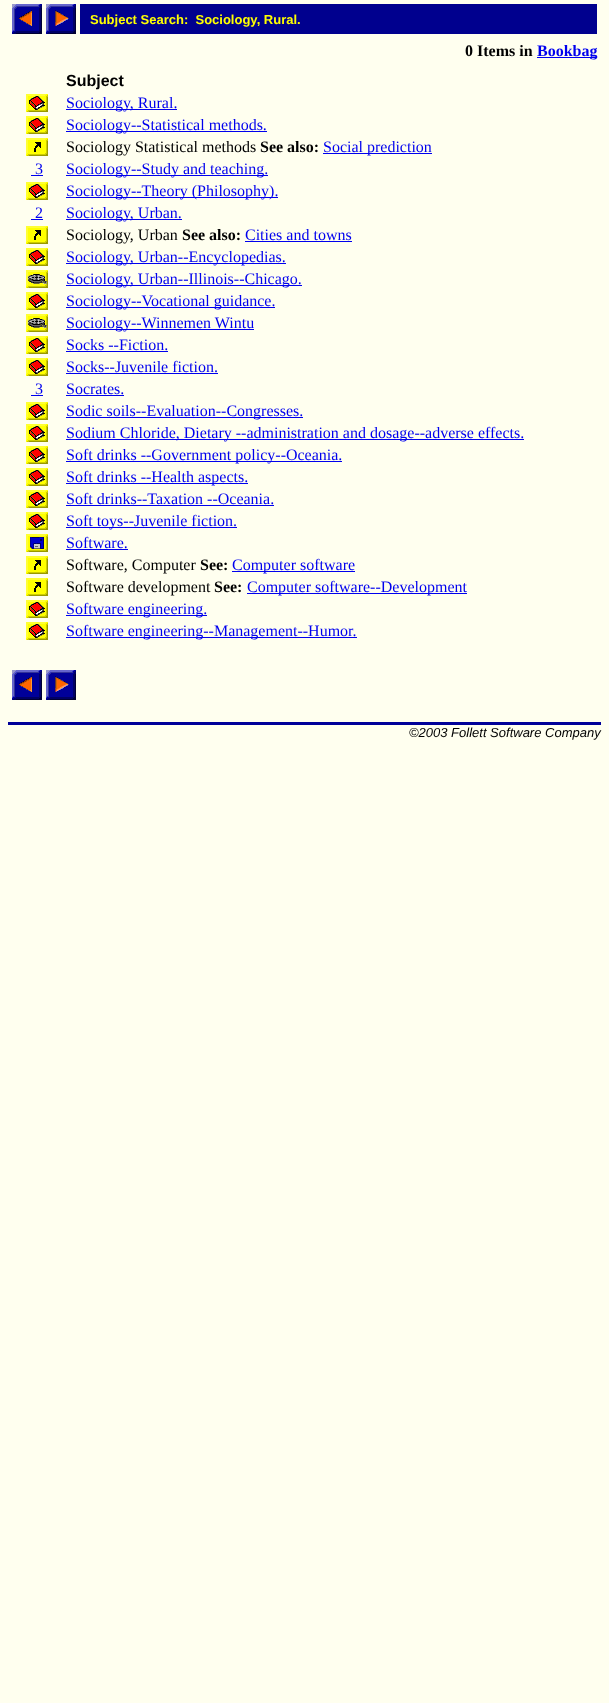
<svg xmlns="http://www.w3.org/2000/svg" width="609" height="1703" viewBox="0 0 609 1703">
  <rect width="100%" height="100%" fill="#ffffef"/>
  <image x="12" y="4" width="30" height="30" href="img/1.png"/>
  <image x="46" y="4" width="30" height="30" href="img/2.png"/>
  <path d="M80 4h517v30H80z" fill="#00008e"/>
  <path d="M537 57h60v1H537z" fill="#00e"/>
  <image x="26" y="94" width="22" height="18" href="img/3.png"/>
  <path d="M66 109h111v1H66z" fill="#00e"/>
  <image x="26" y="116" width="22" height="18" href="img/3.png"/>
  <path d="M66 131h201v1H66z" fill="#00e"/>
  <image x="26" y="138" width="22" height="18" href="img/4.png"/>
  <path d="M323 153h109v1H323z" fill="#00e"/>
  <path d="M31 175h12v1H31z" fill="#00e"/>
  <path d="M66 175h202v1H66z" fill="#00e"/>
  <image x="26" y="182" width="22" height="18" href="img/3.png"/>
  <path d="M66 197h212v1H66z" fill="#00e"/>
  <path d="M31 219h12v1H31z" fill="#00e"/>
  <path d="M66 219h116v1H66z" fill="#00e"/>
  <image x="26" y="226" width="22" height="18" href="img/4.png"/>
  <path d="M245 241h107v1H245z" fill="#00e"/>
  <image x="26" y="248" width="22" height="18" href="img/3.png"/>
  <path d="M66 263h220v1H66z" fill="#00e"/>
  <image x="26" y="270" width="22" height="18" href="img/5.png"/>
  <path d="M66 285h236v1H66z" fill="#00e"/>
  <image x="26" y="292" width="22" height="18" href="img/3.png"/>
  <path d="M66 307h209v1H66z" fill="#00e"/>
  <image x="26" y="314" width="22" height="18" href="img/5.png"/>
  <path d="M66 329h188v1H66z" fill="#00e"/>
  <image x="26" y="336" width="22" height="18" href="img/3.png"/>
  <path d="M66 351h102v1H66z" fill="#00e"/>
  <image x="26" y="358" width="22" height="18" href="img/3.png"/>
  <path d="M66 373h152v1H66z" fill="#00e"/>
  <path d="M31 395h12v1H31z" fill="#00e"/>
  <path d="M66 395h58v1H66z" fill="#00e"/>
  <image x="26" y="402" width="22" height="18" href="img/3.png"/>
  <path d="M66 417h237v1H66z" fill="#00e"/>
  <image x="26" y="424" width="22" height="18" href="img/3.png"/>
  <path d="M66 439h458v1H66z" fill="#00e"/>
  <image x="26" y="446" width="22" height="18" href="img/3.png"/>
  <path d="M66 461h276v1H66z" fill="#00e"/>
  <image x="26" y="468" width="22" height="18" href="img/3.png"/>
  <path d="M66 483h182v1H66z" fill="#00e"/>
  <image x="26" y="490" width="22" height="18" href="img/3.png"/>
  <path d="M66 505h208v1H66z" fill="#00e"/>
  <image x="26" y="512" width="22" height="18" href="img/3.png"/>
  <path d="M66 527h171v1H66z" fill="#00e"/>
  <image x="26" y="534" width="22" height="18" href="img/6.png"/>
  <path d="M66 549h62v1H66z" fill="#00e"/>
  <image x="26" y="556" width="22" height="18" href="img/4.png"/>
  <path d="M232 571h123v1H232z" fill="#00e"/>
  <image x="26" y="578" width="22" height="18" href="img/4.png"/>
  <path d="M247 593h220v1H247z" fill="#00e"/>
  <image x="26" y="600" width="22" height="18" href="img/3.png"/>
  <path d="M66 615h141v1H66z" fill="#00e"/>
  <image x="26" y="622" width="22" height="18" href="img/3.png"/>
  <path d="M66 637h291v1H66z" fill="#00e"/>
  <image x="12" y="670" width="30" height="30" href="img/1.png"/>
  <image x="46" y="670" width="30" height="30" href="img/2.png"/>
  <path d="M8 722h593v3H8z" fill="#009"/>
  <text x="90" y="24" font-family="Liberation Sans" font-size="13" font-weight="bold" fill="#ff0" xml:space="preserve">Subject Search:  Sociology, Rural.</text>
  <text x="465" y="56" font-family="Liberation Serif" font-size="16" font-weight="bold" fill="#000">0 Items in</text>
  <text x="537" y="56" font-family="Liberation Serif" font-size="16" font-weight="bold" fill="#00e">Bookbag</text>
  <text x="66" y="86" font-family="Liberation Sans" font-size="16" font-weight="bold" fill="#000">Subject</text>
  <g font-family="Liberation Serif" font-size="16" fill="#00e">
    <text x="66" y="108">Sociology, Rural.</text>
    <text x="66" y="130">Sociology--Statistical methods.</text>
  </g>
  <text x="66" y="152" font-family="Liberation Serif" font-size="16" fill="#000">Sociology Statistical methods</text>
  <text x="260" y="152" font-family="Liberation Serif" font-size="16" font-weight="bold" fill="#000">See also:</text>
  <g font-family="Liberation Serif" font-size="16" fill="#00e">
    <text x="323" y="152">Social prediction</text>
    <text x="35" y="174">3</text>
    <text x="66" y="174">Sociology--Study and teaching.</text>
    <text x="66" y="196">Sociology--Theory (Philosophy).</text>
    <text x="35" y="218">2</text>
    <text x="66" y="218">Sociology, Urban.</text>
  </g>
  <text x="66" y="240" font-family="Liberation Serif" font-size="16" fill="#000">Sociology, Urban</text>
  <text x="182" y="240" font-family="Liberation Serif" font-size="16" font-weight="bold" fill="#000">See also:</text>
  <g font-family="Liberation Serif" font-size="16" fill="#00e">
    <text x="245" y="240">Cities and towns</text>
    <text x="66" y="262">Sociology, Urban--Encyclopedias.</text>
    <text x="66" y="284">Sociology, Urban--Illinois--Chicago.</text>
    <text x="66" y="306">Sociology--Vocational guidance.</text>
    <text x="66" y="328">Sociology--Winnemen Wintu</text>
    <text x="66" y="350">Socks --Fiction.</text>
    <text x="66" y="372">Socks--Juvenile fiction.</text>
    <text x="35" y="394">3</text>
    <text x="66" y="394">Socrates.</text>
    <text x="66" y="416">Sodic soils--Evaluation--Congresses.</text>
    <text x="66" y="438">Sodium Chloride, Dietary --administration and dosage--adverse effects.</text>
    <text x="66" y="460">Soft drinks --Government policy--Oceania.</text>
    <text x="66" y="482">Soft drinks --Health aspects.</text>
    <text x="66" y="504">Soft drinks--Taxation --Oceania.</text>
    <text x="66" y="526">Soft toys--Juvenile fiction.</text>
    <text x="66" y="548">Software.</text>
  </g>
  <text x="66" y="570" font-family="Liberation Serif" font-size="16" fill="#000">Software, Computer</text>
  <text x="200" y="570" font-family="Liberation Serif" font-size="16" font-weight="bold" fill="#000">See:</text>
  <text x="232" y="570" font-family="Liberation Serif" font-size="16" fill="#00e">Computer software</text>
  <text x="66" y="592" font-family="Liberation Serif" font-size="16" fill="#000">Software development</text>
  <text x="214" y="592" font-family="Liberation Serif" font-size="16" font-weight="bold" fill="#000">See:</text>
  <g font-family="Liberation Serif" font-size="16" fill="#00e">
    <text x="247" y="592">Computer software--Development</text>
    <text x="66" y="614">Software engineering.</text>
    <text x="66" y="636">Software engineering--Management--Humor.</text>
  </g>
  <text x="409" y="737" font-family="Liberation Sans" font-size="13" font-style="italic" fill="#000">©2003 Follett Software Company</text>
</svg>
